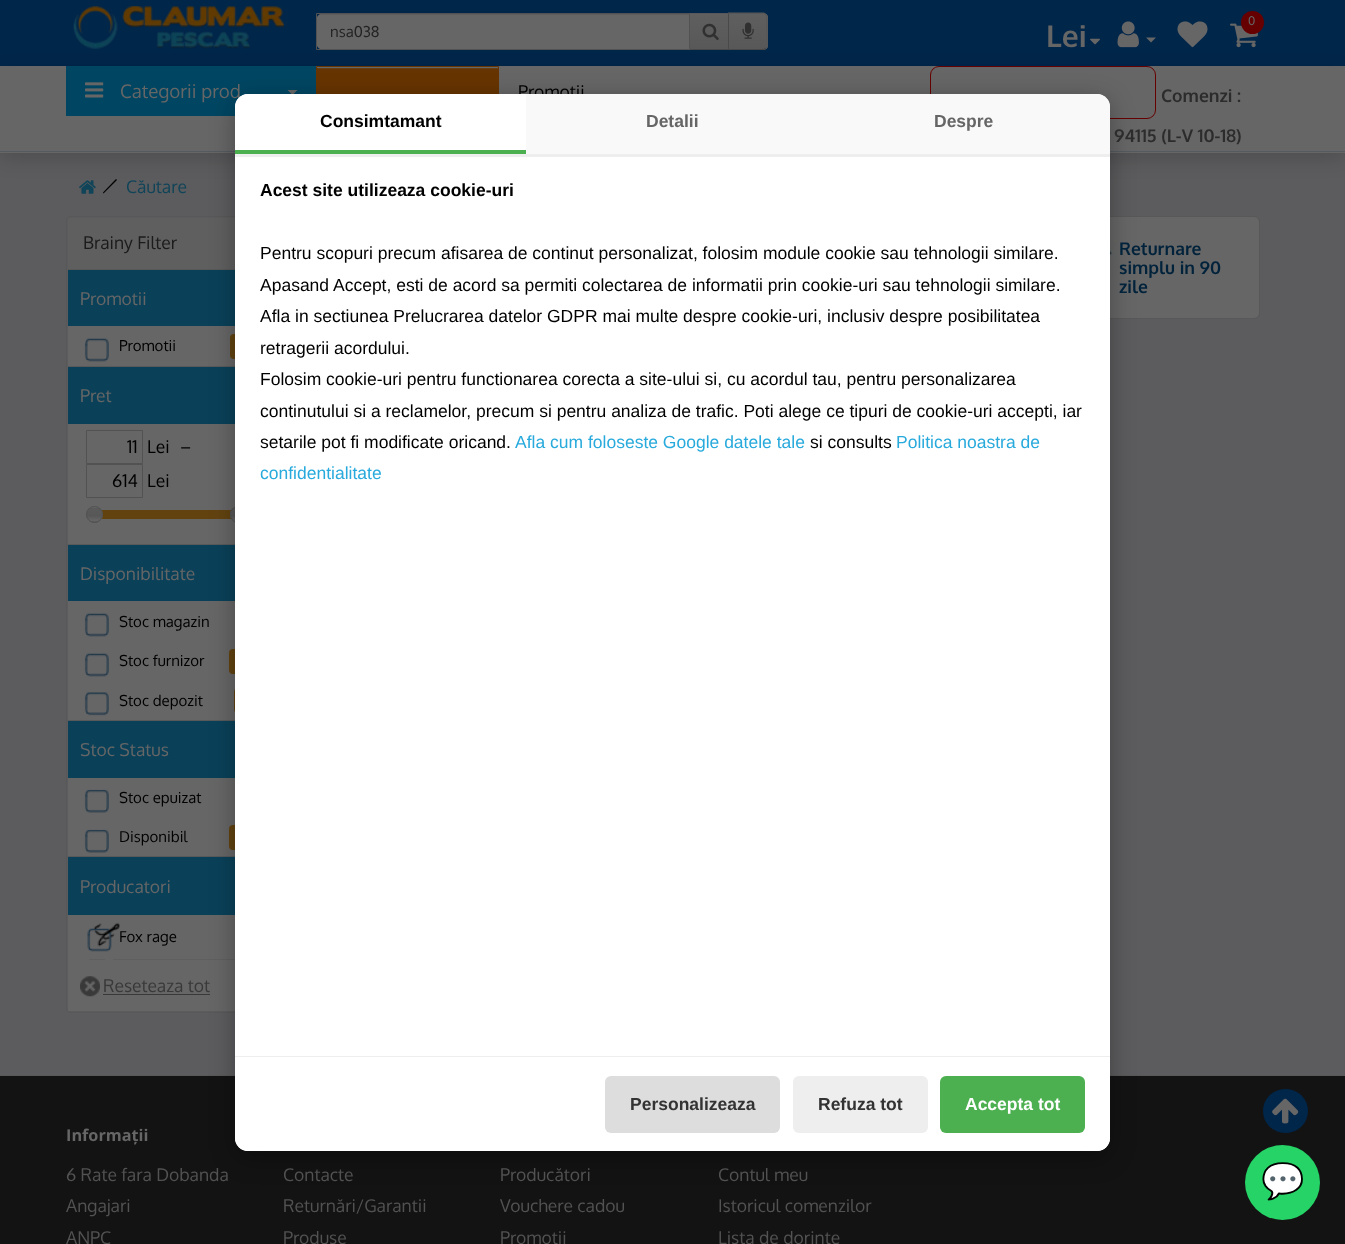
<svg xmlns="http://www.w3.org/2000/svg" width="1345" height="1244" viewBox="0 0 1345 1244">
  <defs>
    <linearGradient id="g1" gradientUnits="userSpaceOnUse" x1="709" y1="14" x2="709" y2="49"><stop offset="0" stop-color="#5f5f5f"/><stop offset="1" stop-color="#585858"/></linearGradient>
    <clipPath id="clip1"><path d="M728 13H763C766 13 768 15 768 18V45C768 48 766 50 763 50H728Z"/></clipPath>
    <linearGradient id="g2" gradientUnits="userSpaceOnUse" x1="748" y1="14" x2="748" y2="49"><stop offset="0" stop-color="#5f5f5f"/><stop offset="1" stop-color="#585858"/></linearGradient>
    <clipPath id="clip2"><rect x="230" y="506" width="16" height="17" rx="8"/></clipPath>
    <linearGradient id="g3" gradientUnits="userSpaceOnUse" x1="238" y1="508" x2="238" y2="521"><stop offset="0" stop-color="#5a5a5a"/><stop offset="0.5" stop-color="#585858"/><stop offset="0.51" stop-color="#545454"/><stop offset="1" stop-color="#666"/></linearGradient>
    <clipPath id="clip3"><rect x="86" y="506" width="17" height="17" rx="8.5"/></clipPath>
    <linearGradient id="g4" gradientUnits="userSpaceOnUse" x1="94" y1="494" x2="94" y2="508"><stop offset="0" stop-color="#5a5a5a"/><stop offset="0.5" stop-color="#585858"/><stop offset="0.51" stop-color="#545454"/><stop offset="1" stop-color="#666"/></linearGradient>
    <linearGradient id="g5" gradientUnits="userSpaceOnUse" x1="94" y1="508" x2="94" y2="521"><stop offset="0" stop-color="#5a5a5a"/><stop offset="0.5" stop-color="#585858"/><stop offset="0.51" stop-color="#545454"/><stop offset="1" stop-color="#666"/></linearGradient>
    <linearGradient id="g6" gradientUnits="userSpaceOnUse" x1="94" y1="521" x2="94" y2="535"><stop offset="0" stop-color="#5a5a5a"/><stop offset="0.5" stop-color="#585858"/><stop offset="0.51" stop-color="#545454"/><stop offset="1" stop-color="#666"/></linearGradient>
  </defs>
  <rect width="100%" height="100%" fill="#5c5c5e"/>
  <path d="M0 0h1345v66H0z" fill="#00264a"/>
  <path d="M0 73h1345v86H0z" fill="#00000026" filter="blur(9.5px)"/>
  <image x="73" y="6" width="211" height="43" href="img/1.png"/>
  <path d="M689 13h40v1H689z" fill="#585858"/>
  <path d="M689 49h40v1H689z" fill="#484848"/>
  <path d="M324 13H690V50H324C319.5 50 316 46.5 316 42V21C316 16.5 319.5 13 324 13Z" fill="#666"/>
  <path d="M318 14h371v1H318z" fill="#00000012"/>
  <path d="M316.5 13.5h373v36H316.5z" fill="none" stroke="#525252"/>
  <path d="M690 15h38v34H690z" fill="url(#g1)"/>
  <path d="M690 14h38v1H690z" fill="#606060"/>
  <image x="702" y="23" width="17" height="17" href="img/2.png"/>
  <path d="M728 13H763C766 13 768 15 768 18V45C768 48 766 50 763 50H728Z" fill="#5c5c5c"/>
  <g clip-path="url(#clip1)">
    <path d="M728 14h40v35H728z" fill="url(#g2)"/>
  </g>
  <path d="M729 14L728 13V12.5H764L766 14L765 15C764.5 14 763.5 14 762 14Z" fill="#585858"/>
  <path d="M767.5 47L766 48.5L765 47.5C766 47 766 46 766 45V18C766 16.5 766 15.5 765 15L766 14L767.5 16Z" fill="#585858"/>
  <path d="M728 50H762C763.5 50 765 49.5 766 48.5L765 47.5C764.5 48.5 763.5 49 762 49H729V48.5L728 49.5Z" fill="#484848"/>
  <path d="M729 14V48.5L728 49.5V13Z" fill="#494949"/>
  <image x="742" y="22" width="12" height="17" href="img/3.png"/>
  <image x="1090" y="38" width="10" height="7" href="img/4.png"/>
  <image x="1117" y="21" width="22" height="27" href="img/5.png"/>
  <path d="M1146 37.5H1156L1151 42.5Z" fill="#666"/>
  <image x="1177" y="21" width="31" height="27" href="img/6.png"/>
  <image x="1230" y="23" width="28" height="25" href="img/7.png"/>
  <circle cx="1252.5" cy="22.5" r="11.5" fill="#600"/>
  <path d="M0 66h1345v87H0z" fill="#666"/>
  <path d="M0 151h1345v1H0z" fill="#545a5f"/>
  <path d="M66 66h250v50H66z" fill="#004662"/>
  <image x="85" y="82" width="19" height="16" href="img/8.png"/>
  <path d="M287.5 90H297.5L292.5 95Z" fill="#666"/>
  <path d="M317 68h181v26H317z" fill="#663400"/>
  <path d="M318 68h180v1H318z" fill="#663e14"/>
  <path d="M316.5 66.5h182v52H316.5z" fill="none" stroke="#663400"/>
  <rect x="930.5" y="66.5" width="225" height="52" rx="8.5" fill="none" stroke="#600"/>
  <rect x="66.5" y="216.5" width="204" height="796" rx="4.5" fill="none" stroke="#585858"/>
  <path d="M68 218h167v51H68z" fill="#5f5f5f"/>
  <path d="M68 269h167v1H68z" fill="#585858"/>
  <path d="M68 270h167v56H68z" fill="#0a4159"/>
  <path d="M68 326h167v40H68z" fill="#666"/>
  <rect x="230" y="334" width="28" height="25" rx="4" fill="#624310"/>
  <path d="M68 367h167v57H68z" fill="#0a4159"/>
  <path d="M68 366h167v1H68z" fill="#58595a"/>
  <path d="M68 424h167v120H68z" fill="#666"/>
  <path d="M101 510h131v9H101z" fill="#624310"/>
  <g clip-path="url(#clip2)">
    <path d="M230 508h5v13H230z" fill="url(#g3)"/>
  </g>
  <rect x="230.5" y="506.5" width="15" height="16" rx="7.5" fill="none" stroke="#525252"/>
  <path d="M68 545h167v56H68z" fill="#0a4159"/>
  <path d="M68 544h167v1H68z" fill="#58595a"/>
  <path d="M68 601h167v119H68z" fill="#666"/>
  <rect x="229" y="649" width="29" height="25" rx="4" fill="#624310"/>
  <rect x="234" y="688" width="24" height="25" rx="4" fill="#624310"/>
  <path d="M68 721h167v57H68z" fill="#0a4159"/>
  <path d="M68 720h167v1H68z" fill="#58595a"/>
  <path d="M68 778h167v78H68z" fill="#666"/>
  <rect x="229" y="825" width="29" height="25" rx="4" fill="#624310"/>
  <path d="M68 857h167v58H68z" fill="#0a4159"/>
  <path d="M68 856h167v1H68z" fill="#58595a"/>
  <path d="M68 915h167v96H68z" fill="#666"/>
  <path d="M113 959h125v1H113z" fill="#5f5f5f"/>
  <path d="M103 994h107v1H103z" fill="#393939"/>
  <rect x="284.5" y="216.5" width="975" height="102" rx="5.5" fill="#666" stroke="#585858"/>
  <image x="1110" y="230" width="7" height="50" href="img/15.png"/>
  <path d="M0 1076h1345v168H0z" fill="#131313"/>
  <path d="M0 1075h1345v1H0z" fill="#585858"/>
  <rect x="235" y="100" width="875" height="1058" rx="13" fill="#0000004d" filter="blur(12.5px)"/>
  <image x="79" y="180" width="17" height="14" href="img/9.png"/>
  <path d="M103 192.5L116 179L117 180L103.5 193.5Z" fill="#000"/>
  <image x="84" y="338" width="25" height="24" href="img/10.png"/>
  <path d="M86.5 430.5h56v33H86.5z" fill="none" stroke="#525252"/>
  <path d="M86.5 464.5h56v33H86.5z" fill="none" stroke="#525252"/>
  <g clip-path="url(#clip3)">
    <path d="M86 506h17v2H86z" fill="url(#g4)"/>
    <path d="M86 508h17v13H86z" fill="url(#g5)"/>
    <path d="M86 521h17v2H86z" fill="url(#g6)"/>
  </g>
  <circle cx="94.5" cy="514.5" r="8" fill="none" stroke="#525252"/>
  <image x="84" y="613" width="25" height="24" href="img/10.png"/>
  <image x="84" y="653" width="25" height="24" href="img/10.png"/>
  <image x="84" y="692" width="25" height="24" href="img/11.png"/>
  <image x="84" y="789" width="25" height="24" href="img/12.png"/>
  <image x="84" y="829" width="25" height="24" href="img/12.png"/>
  <path d="M89 959h16v1H89z" fill="#5f5f5f"/>
  <image x="87" y="922" width="33" height="30" href="img/13.png"/>
  <image x="80" y="976" width="20" height="21" href="img/14.png"/>
  <rect x="1263" y="1089" width="45" height="44" rx="22" fill="#00264a"/>
  <image x="1272" y="1098" width="27" height="26" href="img/16.png"/>
  <circle cx="1282.5" cy="1182.5" r="37.5" fill="#25d366"/>
  <text x="330" y="37" font-family="Oxygen" font-size="15" fill="#222">nsa038</text>
  <text x="1046" y="47" font-family="Oxygen" font-size="30" font-weight="bold" fill="#666">Lei</text>
  <text x="1248" y="25" font-family="Oxygen" font-size="12" fill="#666">0</text>
  <text x="120" y="98" font-family="Oxygen" font-size="18.75" fill="#666">Categorii prod</text>
  <text x="518" y="98" font-family="Oxygen" font-size="17.5" fill="#000">Promotii</text>
  <g font-family="Oxygen" font-size="17.5" font-weight="bold" fill="#2c2c2c">
    <text x="1161" y="102">Comenzi :</text>
    <text x="1114" y="142">94115 (L-V 10-18)</text>
  </g>
  <rect x="235" y="94" width="875" height="1057" rx="13" fill="#fff"/>
  <path d="M235 154h875v3H235z" fill="#eee"/>
  <path d="M248 94H526V154H235V107C235 100 241 94 248 94Z" fill="#fff"/>
  <path d="M235 150h291v4H235z" fill="#4caf50"/>
  <text x="320" y="127" font-family="Liberation Sans" font-size="17.5" font-weight="bold" fill="#000">Consimtamant</text>
  <path d="M526 94h293v60H526z" fill="#f9f9f9"/>
  <text x="646" y="127" font-family="Liberation Sans" font-size="17.5" font-weight="bold" fill="#666">Detalii</text>
  <path d="M819 94H1097C1104 94 1110 100 1110 107V154H819Z" fill="#f9f9f9"/>
  <text x="934" y="127" font-family="Liberation Sans" font-size="17.5" font-weight="bold" fill="#666">Despre</text>
  <text x="260" y="196" font-family="Liberation Sans" font-size="17.5" font-weight="bold" fill="#000">Acest site utilizeaza cookie-uri</text>
  <g font-family="Liberation Sans" font-size="17.5" fill="#000">
    <text x="260" y="259">Pentru scopuri precum afisarea de continut personalizat, folosim module cookie sau tehnologii similare.</text>
    <text x="260" y="291">Apasand Accept, esti de acord sa permiti colectarea de informatii prin cookie-uri sau tehnologii similare.</text>
    <text x="260" y="322">Afla in sectiunea Prelucrarea datelor GDPR mai multe despre cookie-uri, inclusiv despre posibilitatea</text>
    <text x="260" y="354">retragerii acordului.</text>
    <text x="260" y="385">Folosim cookie-uri pentru functionarea corecta a site-ului si, cu acordul tau, pentru personalizarea</text>
    <text x="260" y="417">continutului si a reclamelor, precum si pentru analiza de trafic. Poti alege ce tipuri de cookie-uri accepti, iar</text>
    <text x="260" y="448">setarile pot fi modificate oricand.</text>
  </g>
  <text x="515" y="448" font-family="Liberation Sans" font-size="17.5" fill="#28aadc">Afla cum foloseste Google datele tale</text>
  <text x="810" y="448" font-family="Liberation Sans" font-size="17.5" fill="#000">si consults</text>
  <g font-family="Liberation Sans" font-size="17.5" fill="#28aadc">
    <text x="896" y="448">Politica noastra de</text>
    <text x="260" y="479">confidentialitate</text>
  </g>
  <path d="M235 1056H1110V1138C1110 1145 1104 1151 1097 1151H248C241 1151 235 1145 235 1138Z" fill="#fff"/>
  <path d="M235 1056h875v1H235z" fill="#eee"/>
  <rect x="605" y="1076" width="175" height="57" rx="6" fill="#ddd"/>
  <text x="630" y="1110" font-family="Liberation Sans" font-size="17.5" font-weight="bold" fill="#333">Personalizeaza</text>
  <rect x="793" y="1076" width="135" height="57" rx="6" fill="#eee"/>
  <text x="818" y="1110" font-family="Liberation Sans" font-size="17.5" font-weight="bold" fill="#333">Refuza tot</text>
  <rect x="940" y="1076" width="145" height="57" rx="6" fill="#4caf50"/>
  <text x="965" y="1110" font-family="Liberation Sans" font-size="17.5" font-weight="bold" fill="#fff">Accepta tot</text>
  <text x="126" y="193" font-family="Oxygen" font-size="17.5" fill="#104458">Căutare</text>
  <text x="83" y="249" font-family="Oxygen" font-size="17.5" fill="#1b1b1b">Brainy Filter</text>
  <text x="80" y="305" font-family="Oxygen" font-size="17.5" fill="#666">Promotii</text>
  <text x="119" y="351" font-family="Oxygen" font-size="15" fill="#000">Promotii</text>
  <text x="80" y="402" font-family="Oxygen" font-size="17.5" fill="#666">Pret</text>
  <g font-family="Oxygen" font-size="17.5" fill="#000">
    <text x="127" y="453">11</text>
    <text x="147" y="453">Lei</text>
    <text x="180" y="453">–</text>
    <text x="112" y="487">614</text>
    <text x="147" y="487">Lei</text>
  </g>
  <text x="80" y="580" font-family="Oxygen" font-size="17.5" fill="#666">Disponibilitate</text>
  <g font-family="Oxygen" font-size="15" fill="#000">
    <text x="119" y="627">Stoc magazin</text>
    <text x="119" y="666">Stoc furnizor</text>
    <text x="119" y="706">Stoc depozit</text>
  </g>
  <text x="80" y="756" font-family="Oxygen" font-size="17.5" fill="#666">Stoc Status</text>
  <g font-family="Oxygen" font-size="15" fill="#000">
    <text x="119" y="803">Stoc epuizat</text>
    <text x="119" y="842">Disponibil</text>
  </g>
  <text x="80" y="893" font-family="Oxygen" font-size="17.5" fill="#666">Producatori</text>
  <text x="119" y="942" font-family="Oxygen" font-size="15" fill="#000">Fox rage</text>
  <text x="103" y="992" font-family="Oxygen" font-size="17.5" fill="#393939">Reseteaza tot</text>
  <g font-family="Oxygen" font-size="17.5" font-weight="bold" fill="#00223b">
    <text x="1119" y="255">Returnare</text>
    <text x="1119" y="274">simplu in 90</text>
    <text x="1119" y="293">zile</text>
  </g>
  <text x="66" y="1141" font-family="Open Sans" font-size="16.25" font-weight="bold" fill="#666">Informații</text>
  <g font-family="Oxygen" font-size="17.5" fill="#525252">
    <text x="66" y="1181">6 Rate fara Dobanda</text>
    <text x="66" y="1212">Angajari</text>
    <text x="66" y="1244">ANPC</text>
    <text x="283" y="1181">Contacte</text>
    <text x="283" y="1212">Returnări/Garantii</text>
    <text x="283" y="1244">Produse</text>
    <text x="500" y="1181">Producători</text>
    <text x="500" y="1212">Vouchere cadou</text>
    <text x="500" y="1244">Promotii</text>
    <text x="718" y="1181">Contul meu</text>
    <text x="718" y="1212">Istoricul comenzilor</text>
    <text x="718" y="1244">Lista de dorințe</text>
  </g>
  <text x="1261" y="1193" font-family="Noto Color Emoji" font-size="35" fill="#fff">💬</text>
</svg>
